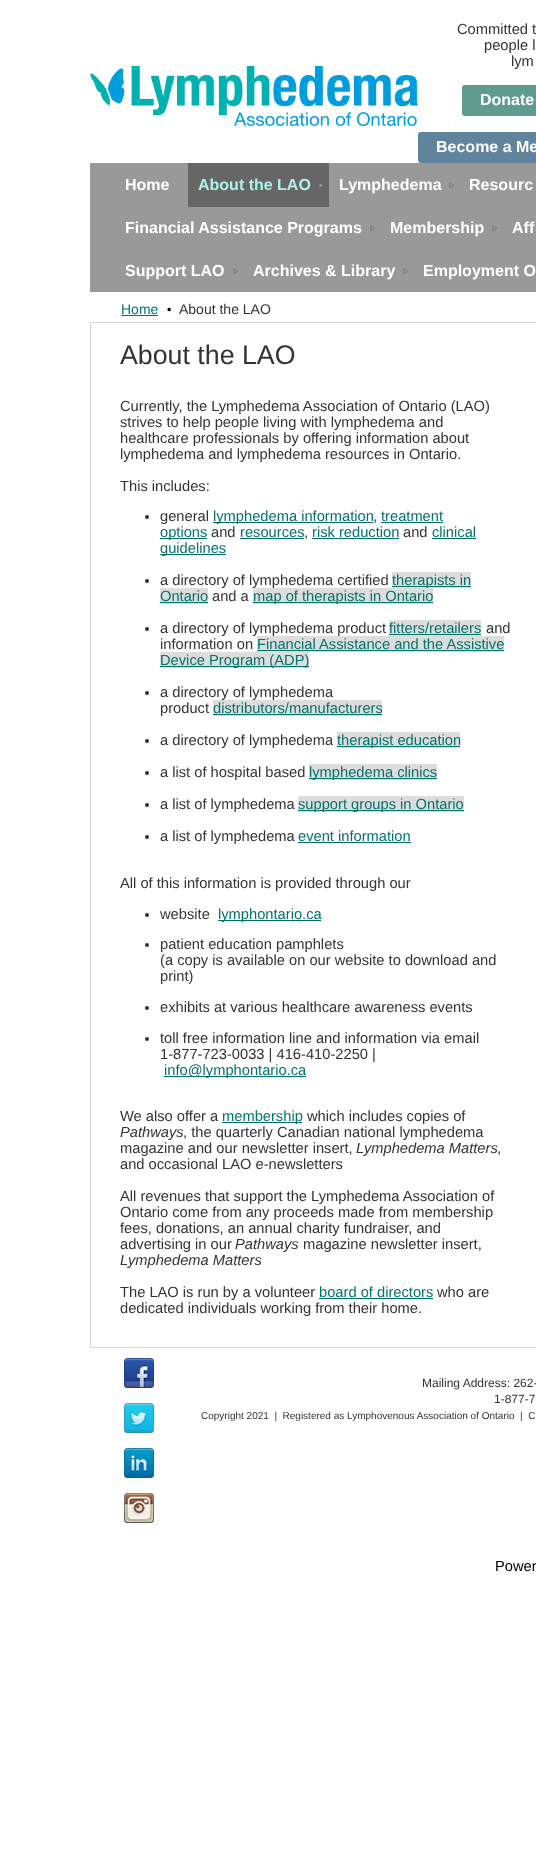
<svg xmlns="http://www.w3.org/2000/svg" width="536" height="1855" viewBox="0 0 536 1855">
  <rect width="100%" height="100%" fill="#fff"/>
  <image x="90" y="66" width="328" height="60" href="img/1.png"/>
  <rect x="462" y="85" width="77" height="31" rx="3" fill="#5f9b8f"/>
  <rect x="418" y="132" width="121" height="31" rx="3" fill="#5f849b"/>
  <path d="M90 163h446v129H90z" fill="#999"/>
  <path d="M188 163h141v44H188z" fill="#666"/>
  <image x="319" y="182" width="5" height="6" href="img/2.png"/>
  <image x="449" y="182" width="6" height="7" href="img/3.png"/>
  <image x="370" y="225" width="6" height="7" href="img/3.png"/>
  <image x="492" y="225" width="6" height="7" href="img/3.png"/>
  <image x="233" y="268" width="6" height="7" href="img/3.png"/>
  <image x="403" y="268" width="6" height="7" href="img/3.png"/>
  <path d="M121 315h37v1H121z" fill="#00746b"/>
  <image x="167" y="307" width="4" height="5" href="img/4.png"/>
  <path d="M90.5 322.5h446v1025H90.5z" fill="none" stroke="#d6d6d6"/>
  <circle cx="147" cy="517" r="2" fill="#333"/>
  <path d="M213 522h160v1H213z" fill="#00746b"/>
  <path d="M381 522h62v1H381z" fill="#00746b"/>
  <path d="M160 538h47v1H160z" fill="#00746b"/>
  <path d="M240 538h64v1H240z" fill="#00746b"/>
  <path d="M312 538h87v1H312z" fill="#00746b"/>
  <path d="M432 538h44v1H432z" fill="#00746b"/>
  <path d="M160 554h66v1H160z" fill="#00746b"/>
  <circle cx="147" cy="581" r="2" fill="#333"/>
  <path d="M392 572h79v16H392z" fill="#ddd"/>
  <path d="M392 586h79v1H392z" fill="#00746b"/>
  <circle cx="147" cy="629" r="2" fill="#333"/>
  <path d="M389 620h92v16H389z" fill="#ddd"/>
  <path d="M389 634h92v1H389z" fill="#00746b"/>
  <path d="M160 652h149v16H160z" fill="#ddd"/>
  <path d="M160 666h149v1H160z" fill="#00746b"/>
  <circle cx="147" cy="693" r="2" fill="#333"/>
  <circle cx="147" cy="741" r="2" fill="#333"/>
  <path d="M337 732h123v16H337z" fill="#ddd"/>
  <path d="M337 746h123v1H337z" fill="#00746b"/>
  <circle cx="147" cy="773" r="2" fill="#333"/>
  <path d="M309 764h128v16H309z" fill="#ddd"/>
  <path d="M309 778h128v1H309z" fill="#00746b"/>
  <circle cx="147" cy="805" r="2" fill="#333"/>
  <path d="M298 796h166v16H298z" fill="#ddd"/>
  <path d="M298 810h166v1H298z" fill="#00746b"/>
  <circle cx="147" cy="837" r="2" fill="#333"/>
  <path d="M298 842h113v1H298z" fill="#00746b"/>
  <circle cx="147" cy="915" r="2" fill="#333"/>
  <path d="M218 920h103v1H218z" fill="#00746b"/>
  <circle cx="147" cy="945" r="2" fill="#333"/>
  <circle cx="147" cy="1008" r="2" fill="#333"/>
  <circle cx="147" cy="1039" r="2" fill="#333"/>
  <path d="M164 1076h142v1H164z" fill="#00746b"/>
  <path d="M222 1122h80v1H222z" fill="#00746b"/>
  <path d="M319 1298h114v1H319z" fill="#00746b"/>
  <image x="124" y="1358" width="30" height="30" href="img/5.png"/>
  <image x="124" y="1403" width="30" height="30" href="img/6.png"/>
  <image x="124" y="1448" width="30" height="30" href="img/7.png"/>
  <image x="124" y="1493" width="30" height="30" href="img/8.png"/>
  <g font-family="Liberation Sans" font-size="14.7" fill="#333">
    <text x="457" y="34">Committed t</text>
    <text x="484" y="50">people l</text>
    <text x="511" y="66">lym</text>
  </g>
  <g font-family="Liberation Sans" font-size="16" font-weight="bold" fill="#fff">
    <text x="480" y="105">Donate</text>
    <text x="436" y="152">Become a Me</text>
    <text x="125" y="190">Home</text>
  </g>
  <text x="198" y="190" font-family="Liberation Sans" font-size="16" font-weight="bold" fill="#aef2e8">About the LAO</text>
  <g font-family="Liberation Sans" font-size="16" font-weight="bold" fill="#fff">
    <text x="339" y="190">Lymphedema</text>
    <text x="469" y="190">Resourc</text>
    <text x="125" y="233">Financial Assistance Programs</text>
    <text x="390" y="233">Membership</text>
    <text x="512" y="233">Aff</text>
    <text x="125" y="276">Support LAO</text>
    <text x="253" y="276">Archives &amp; Library</text>
    <text x="423" y="276">Employment O</text>
  </g>
  <text x="121" y="314" font-family="Liberation Sans" font-size="14" fill="#00746b">Home</text>
  <text x="179" y="314" font-family="Liberation Sans" font-size="14" fill="#333">About the LAO</text>
  <text x="120" y="364" font-family="Liberation Sans" font-size="26.75" fill="#333">About the LAO</text>
  <g font-family="Liberation Sans" font-size="14.7" fill="#333">
    <text x="120" y="411">Currently, the Lymphedema Association of Ontario (LAO)</text>
    <text x="120" y="427">strives to help people living with lymphedema and</text>
    <text x="120" y="443">healthcare professionals by offering information about</text>
    <text x="120" y="459">lymphedema and lymphedema resources in Ontario.</text>
    <text x="120" y="491">This includes:</text>
    <text x="160" y="521">general</text>
  </g>
  <g font-family="Liberation Sans" font-size="14.7" fill="#00746b">
    <text x="213" y="521">lymphedema information</text>
    <text x="381" y="521">treatment</text>
  </g>
  <text x="373" y="521" font-family="Liberation Sans" font-size="14.7" fill="#333">,</text>
  <text x="160" y="537" font-family="Liberation Sans" font-size="14.7" fill="#00746b">options</text>
  <text x="211" y="537" font-family="Liberation Sans" font-size="14.7" fill="#333">and</text>
  <text x="240" y="537" font-family="Liberation Sans" font-size="14.7" fill="#00746b">resources</text>
  <text x="304" y="537" font-family="Liberation Sans" font-size="14.7" fill="#333">,</text>
  <text x="312" y="537" font-family="Liberation Sans" font-size="14.7" fill="#00746b">risk reduction</text>
  <text x="403" y="537" font-family="Liberation Sans" font-size="14.7" fill="#333">and</text>
  <g font-family="Liberation Sans" font-size="14.7" fill="#00746b">
    <text x="432" y="537">clinical</text>
    <text x="160" y="553">guidelines</text>
  </g>
  <text x="160" y="585" font-family="Liberation Sans" font-size="14.7" fill="#333">a directory of lymphedema certified</text>
  <text x="392" y="585" font-family="Liberation Sans" font-size="14.7" fill="#00746b">therapists in</text>
  <path d="M160 588h48v16H160z" fill="#ddd"/>
  <text x="160" y="601" font-family="Liberation Sans" font-size="14.7" fill="#00746b">Ontario</text>
  <path d="M160 602h48v1H160z" fill="#00746b"/>
  <text x="212" y="601" font-family="Liberation Sans" font-size="14.7" fill="#333">and a</text>
  <path d="M253 588h180v16H253z" fill="#ddd"/>
  <path d="M253 602h180v1H253z" fill="#00746b"/>
  <text x="253" y="601" font-family="Liberation Sans" font-size="14.7" fill="#00746b">map of therapists in Ontario</text>
  <text x="160" y="633" font-family="Liberation Sans" font-size="14.7" fill="#333">a directory of lymphedema product</text>
  <text x="389" y="633" font-family="Liberation Sans" font-size="14.7" fill="#00746b">fitters/retailers</text>
  <g font-family="Liberation Sans" font-size="14.7" fill="#333">
    <text x="486" y="633">and</text>
    <text x="160" y="649">information on</text>
  </g>
  <path d="M257 636h247v16H257z" fill="#ddd"/>
  <text x="257" y="649" font-family="Liberation Sans" font-size="14.7" fill="#00746b">Financial Assistance and the Assistive</text>
  <path d="M257 650h247v1H257z" fill="#00746b"/>
  <text x="160" y="665" font-family="Liberation Sans" font-size="14.7" fill="#00746b">Device Program (ADP)</text>
  <g font-family="Liberation Sans" font-size="14.7" fill="#333">
    <text x="160" y="697">a directory of lymphedema</text>
    <text x="160" y="713">product</text>
  </g>
  <path d="M213 700h169v16H213z" fill="#ddd"/>
  <text x="213" y="713" font-family="Liberation Sans" font-size="14.7" fill="#00746b">distributors/manufacturers</text>
  <path d="M213 714h169v1H213z" fill="#00746b"/>
  <text x="160" y="745" font-family="Liberation Sans" font-size="14.7" fill="#333">a directory of lymphedema</text>
  <text x="337" y="745" font-family="Liberation Sans" font-size="14.7" fill="#00746b">therapist education</text>
  <text x="160" y="777" font-family="Liberation Sans" font-size="14.7" fill="#333">a list of hospital based</text>
  <text x="309" y="777" font-family="Liberation Sans" font-size="14.7" fill="#00746b">lymphedema clinics</text>
  <text x="160" y="809" font-family="Liberation Sans" font-size="14.7" fill="#333">a list of lymphedema</text>
  <text x="298" y="809" font-family="Liberation Sans" font-size="14.7" fill="#00746b">support groups in Ontario</text>
  <text x="160" y="841" font-family="Liberation Sans" font-size="14.7" fill="#333">a list of lymphedema</text>
  <text x="298" y="841" font-family="Liberation Sans" font-size="14.7" fill="#00746b">event information</text>
  <g font-family="Liberation Sans" font-size="14.7" fill="#333">
    <text x="120" y="888">All of this information is provided through our</text>
    <text x="160" y="919">website</text>
  </g>
  <text x="218" y="919" font-family="Liberation Sans" font-size="14.7" fill="#00746b">lymphontario.ca</text>
  <g font-family="Liberation Sans" font-size="14.7" fill="#333">
    <text x="160" y="949">patient education pamphlets</text>
    <text x="160" y="965">(a copy is available on our website to download and</text>
    <text x="160" y="981">print)</text>
    <text x="160" y="1012">exhibits at various healthcare awareness events</text>
    <text x="160" y="1043">toll free information line and information via email</text>
    <text x="160" y="1059">1-877-723-0033 | 416-410-2250 |</text>
  </g>
  <text x="164" y="1075" font-family="Liberation Sans" font-size="14.7" fill="#00746b">info@lymphontario.ca</text>
  <text x="120" y="1121" font-family="Liberation Sans" font-size="14.7" fill="#333">We also offer a</text>
  <text x="222" y="1121" font-family="Liberation Sans" font-size="14.7" fill="#00746b">membership</text>
  <text x="307" y="1121" font-family="Liberation Sans" font-size="14.7" fill="#333">which includes copies of</text>
  <text x="120" y="1137" font-family="Liberation Sans" font-size="14.7" font-style="italic" fill="#333">Pathways</text>
  <g font-family="Liberation Sans" font-size="14.7" fill="#333">
    <text x="183" y="1137">, the quarterly Canadian national lymphedema</text>
    <text x="120" y="1153">magazine and our newsletter insert,</text>
  </g>
  <text x="356" y="1153" font-family="Liberation Sans" font-size="14.7" font-style="italic" fill="#333">Lymphedema Matters</text>
  <g font-family="Liberation Sans" font-size="14.7" fill="#333">
    <text x="497" y="1153">,</text>
    <text x="120" y="1169">and occasional LAO e-newsletters</text>
    <text x="120" y="1201">All revenues that support the Lymphedema Association of</text>
    <text x="120" y="1217">Ontario come from any proceeds made from membership</text>
    <text x="120" y="1233">fees, donations, an annual charity fundraiser, and</text>
    <text x="120" y="1249">advertising in our</text>
  </g>
  <text x="235" y="1249" font-family="Liberation Sans" font-size="14.7" font-style="italic" fill="#333">Pathways</text>
  <text x="303" y="1249" font-family="Liberation Sans" font-size="14.7" fill="#333">magazine newsletter insert,</text>
  <text x="120" y="1265" font-family="Liberation Sans" font-size="14.7" font-style="italic" fill="#333">Lymphedema Matters</text>
  <text x="120" y="1297" font-family="Liberation Sans" font-size="14.7" fill="#333">The LAO is run by a volunteer</text>
  <text x="319" y="1297" font-family="Liberation Sans" font-size="14.7" fill="#00746b">board of directors</text>
  <g font-family="Liberation Sans" font-size="14.7" fill="#333">
    <text x="437" y="1297">who are</text>
    <text x="120" y="1313">dedicated individuals working from their home.</text>
  </g>
  <g font-family="Liberation Sans" font-size="12" fill="#333">
    <text x="422" y="1387">Mailing Address: 262-</text>
    <text x="494" y="1403">1-877-7</text>
  </g>
  <text x="201" y="1419" font-family="Liberation Sans" font-size="10" fill="#333" xml:space="preserve">Copyright 2021  |  Registered as Lymphovenous Association of Ontario  |  C</text>
  <text x="495" y="1571" font-family="Liberation Sans" font-size="14.7" fill="#000">Power</text>
</svg>
